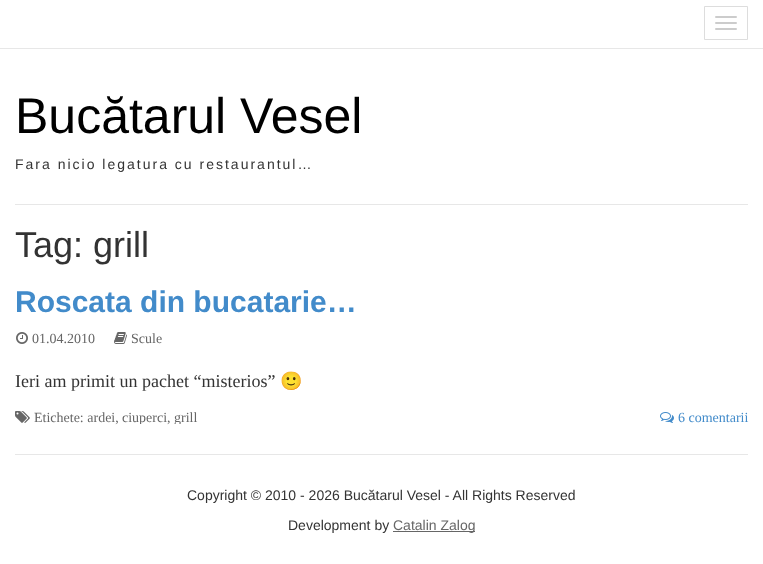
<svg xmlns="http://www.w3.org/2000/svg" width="763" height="564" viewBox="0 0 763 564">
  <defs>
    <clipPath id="clip1"><path d="M15 395h733v29H15z"/></clipPath>
  </defs>
  <rect width="100%" height="100%" fill="#fff"/>
  <path d="M0 48h763v1H0z" fill="#e7e7e7"/>
  <path d="M704.5 6.5h43v33H704.5z" fill="none" stroke="#ddd"/>
  <rect x="715" y="16" width="22" height="2" rx="1" fill="#ccc"/>
  <rect x="715" y="22" width="22" height="2" rx="1" fill="#ccc"/>
  <rect x="715" y="28" width="22" height="2" rx="1" fill="#ccc"/>
  <path d="M15 204h733v1H15z" fill="#e7e7e7"/>
  <path d="M15 454h733v1H15z" fill="#e7e7e7"/>
  <image x="16" y="332" width="12" height="12" href="img/1.png"/>
  <image x="114" y="332" width="13" height="12" href="img/2.png"/>
  <image x="15" y="411" width="15" height="12" href="img/3.png"/>
  <image x="660" y="412" width="14" height="11" href="img/4.png"/>
  <path d="M393 531h82v1H393z" fill="#666"/>
  <text x="15" y="133" font-family="Liberation Sans" font-size="50" fill="#000">Bucătarul Vesel</text>
  <text x="15" y="169" font-family="Liberation Sans" font-size="14" letter-spacing="2" fill="#333">Fara nicio legatura cu restaurantul…</text>
  <text x="15" y="257" font-family="Liberation Sans" font-size="36" fill="#333">Tag: grill</text>
  <text x="15" y="312" font-family="Liberation Sans" font-size="30" font-weight="bold" fill="#428bca">Roscata din bucatarie…</text>
  <g font-family="Liberation Serif" font-size="14" fill="#666">
    <text x="32" y="343">01.04.2010</text>
    <text x="131" y="343">Scule</text>
  </g>
  <text x="15" y="387" font-family="Liberation Serif" font-size="18" fill="#333">Ieri am primit un pachet “misterios”</text>
  <text x="280" y="387" font-family="Noto Color Emoji" font-size="18" fill="#333">🙂</text>
  <text x="34" y="422" font-family="Liberation Serif" font-size="14" fill="#666">Etichete: ardei,</text>
  <g clip-path="url(#clip1)">
    <text x="122" y="422" font-family="Liberation Serif" font-size="14" fill="#666">ciuperci</text>
  </g>
  <text x="167" y="422" font-family="Liberation Serif" font-size="14" fill="#666">,</text>
  <g clip-path="url(#clip1)">
    <text x="174" y="422" font-family="Liberation Serif" font-size="14" fill="#666">grill</text>
  </g>
  <text x="678" y="422" font-family="Liberation Serif" font-size="14" fill="#428bca">6 comentarii</text>
  <g font-family="Liberation Sans" font-size="14" fill="#333">
    <text x="187" y="500">Copyright © 2010 - 2026 Bucătarul Vesel - All Rights Reserved</text>
    <text x="288" y="530">Development by</text>
  </g>
  <text x="393" y="530" font-family="Liberation Sans" font-size="14" fill="#666">Catalin Zalog</text>
</svg>
